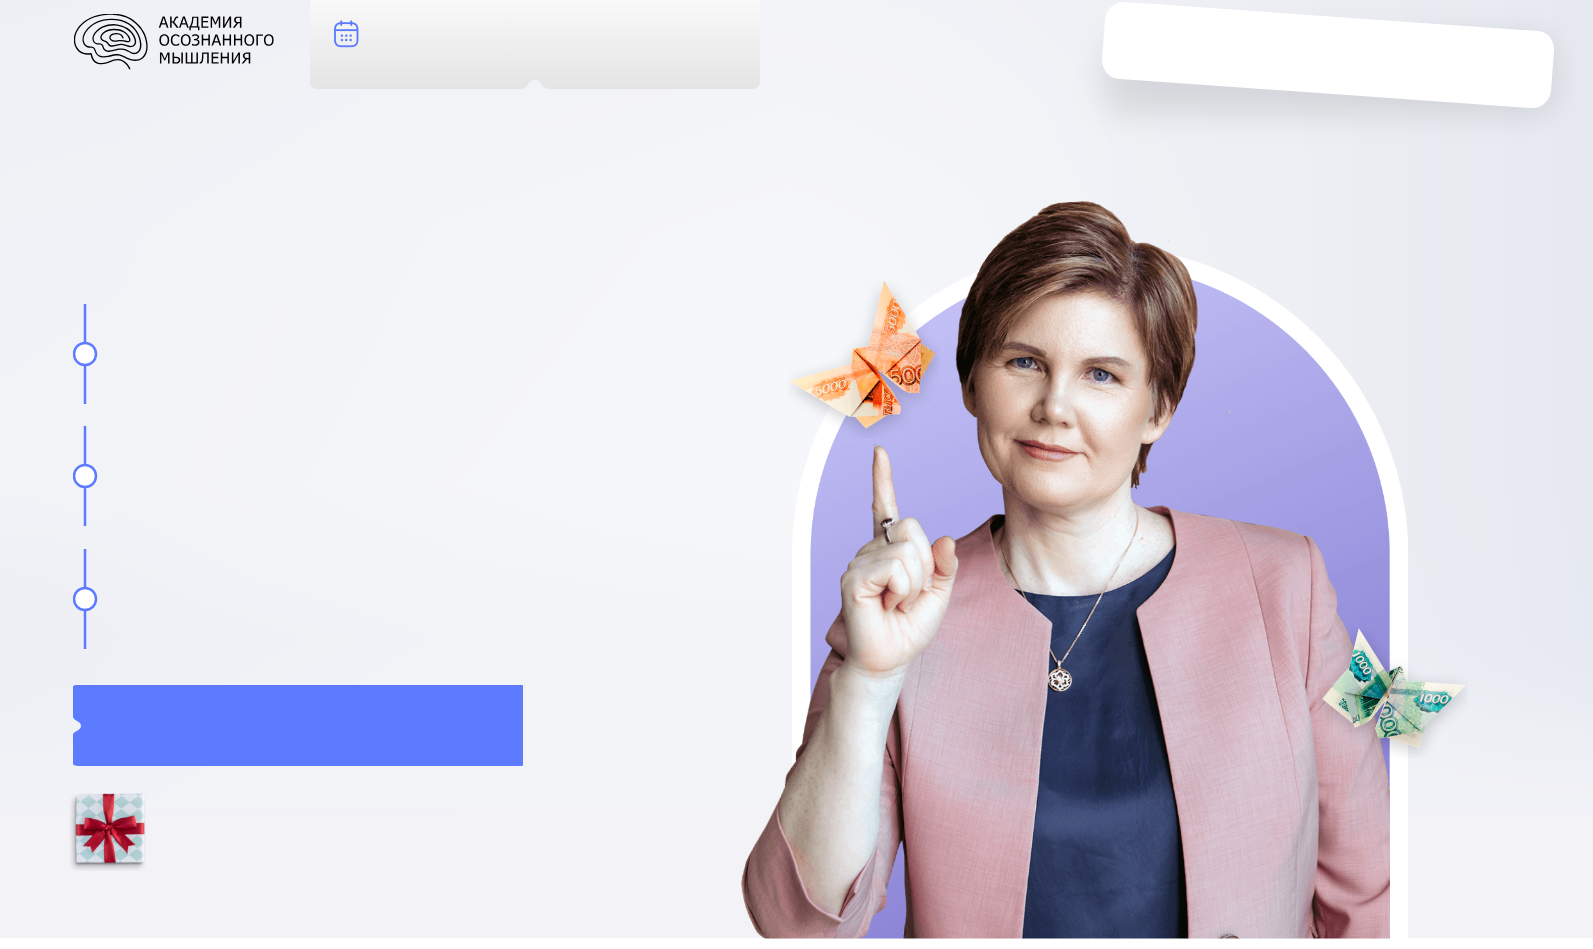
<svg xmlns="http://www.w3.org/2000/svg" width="1593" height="949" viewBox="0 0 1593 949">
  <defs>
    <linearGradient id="g1" gradientUnits="userSpaceOnUse" x1="535" y1="-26" x2="535" y2="90"><stop offset="0" stop-color="#fff"/><stop offset="1" stop-color="#e4e4e4"/></linearGradient>
    <clipPath id="clip1"><path d="M73 304h25v100H73z"/></clipPath>
    <clipPath id="clip2"><path d="M73 426h25v100H73z"/></clipPath>
    <clipPath id="clip3"><path d="M73 549h25v100H73z"/></clipPath>
    <clipPath id="clip4"><path d="M73 685h450v81H73z"/></clipPath>
  </defs>
  <rect width="100%" height="100%" fill="#fff"/>
  <image x="0" y="0" width="1593" height="938" href="img/1.png"/>
  <image x="74" y="14" width="200" height="56" href="img/2.png"/>
  <path d="M317 89C313 89 310 86 310 82V-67C310-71 313-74 317-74H753C757-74 760-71 760-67V82C760 86 757 89 753 89H549C547 89 544 88 543 86L541 83C538 79 532 79 529 83L527 86C526 88 523 89 521 89Z" fill="url(#g1)"/>
  <rect x="1104" y="36" width="450" height="78" rx="19" fill="#0000001a" filter="blur(15px)"/>
  <path d="M1125 2L1537 31C1547 31 1555 40 1554 51L1551 91C1550 101 1541 109 1531 108L1120 79C1109 79 1102 70 1102 59L1105 19C1106 9 1115 1 1125 2Z" fill="#fff"/>
  <image x="334" y="20" width="25" height="28" href="img/3.png"/>
  <image x="741" y="201" width="667" height="738" href="img/4.png"/>
  <path d="M85 304V404" fill="none" stroke="#5d7bff" stroke-width="2.5"/>
  <circle cx="85" cy="354" r="11" fill="#fff"/>
  <g clip-path="url(#clip1)">
    <circle cx="85" cy="354" r="11" fill="none" stroke="#5d7bff" stroke-width="2.5"/>
  </g>
  <image x="788" y="281" width="152" height="157" href="img/5.png"/>
  <path d="M85 426V526" fill="none" stroke="#5d7bff" stroke-width="2.5"/>
  <circle cx="85" cy="476" r="11" fill="#fff"/>
  <g clip-path="url(#clip2)">
    <circle cx="85" cy="476" r="11" fill="none" stroke="#5d7bff" stroke-width="2.5"/>
  </g>
  <path d="M85 549V649" fill="none" stroke="#5d7bff" stroke-width="2.5"/>
  <circle cx="85" cy="599" r="11" fill="#fff"/>
  <g clip-path="url(#clip3)">
    <circle cx="85" cy="599" r="11" fill="none" stroke="#5d7bff" stroke-width="2.5"/>
  </g>
  <g clip-path="url(#clip4)">
    <path d="M72 689C72 683 81 685 84 685H112C127 685 124 686 124 701V750C124 770 125 766 105 766H84C71 766 72 766 72 753C72 750 72 737 73 734C75 731 81 730 81 726C81 721 74 721 73 717Z" fill="#5d7bff"/>
  </g>
  <rect x="95" y="685" width="428" height="81" rx="1" fill="#5d7bff"/>
  <image x="1318" y="628" width="150" height="130" href="img/6.png"/>
  <image x="69" y="793" width="77" height="78" href="img/7.png"/>
</svg>
